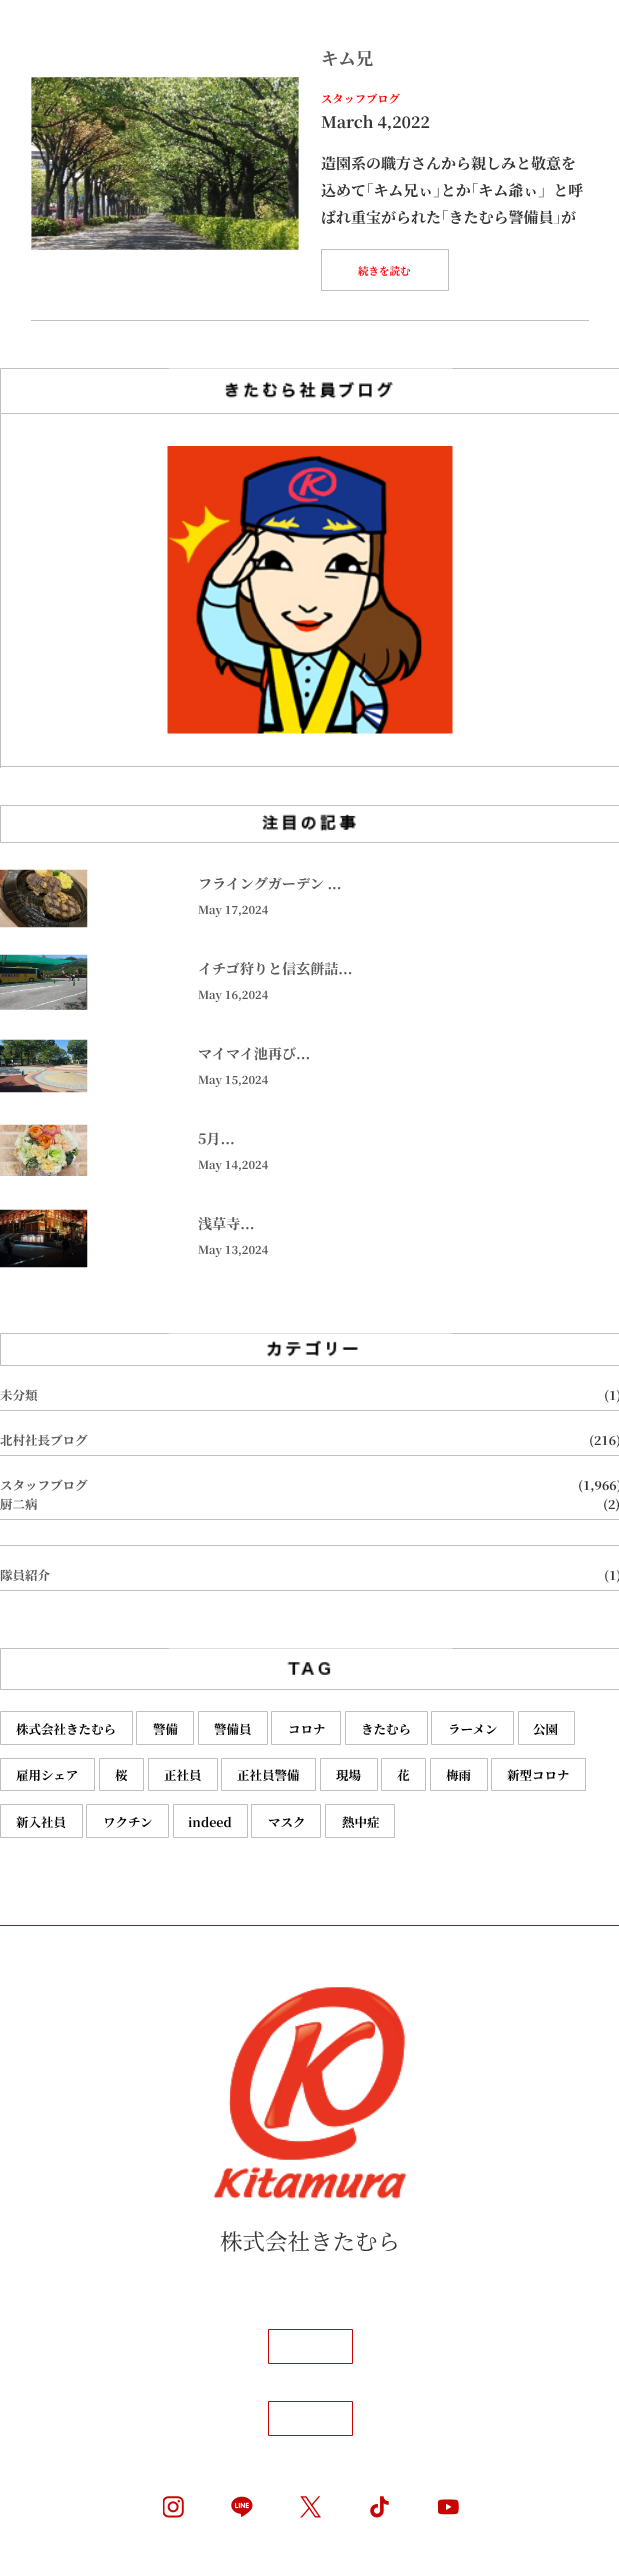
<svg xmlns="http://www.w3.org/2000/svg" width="619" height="2560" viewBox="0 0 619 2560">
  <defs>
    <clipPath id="clip1"><path d="M321 149h268v75H321z"/></clipPath>
  </defs>
  <rect width="100%" height="100%" fill="#fff"/>
  <path d="M31 320h558v1H31z" fill="#bfbfbf"/>
  <image x="31" y="77" width="268" height="173" href="img/1.png"/>
  <path d="M321.5 249.5h127v41H321.5z" fill="none" stroke="#bfbfbf"/>
  <path d="M0.5 368.5h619v45H0.5z" fill="none" stroke="#bfbfbf"/>
  <image x="168" y="368" width="285" height="31" href="img/2.png"/>
  <path d="M0 766h619v1H0z" fill="#bfbfbf"/>
  <path d="M0 414h1v354H0z" fill="#bfbfbf"/>
  <image x="167" y="446" width="286" height="288" href="img/3.png"/>
  <path d="M0.5 805.5h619v37H0.5z" fill="none" stroke="#bfbfbf"/>
  <image x="261" y="814" width="95" height="18" href="img/4.png"/>
  <image x="0" y="869" width="88" height="59" href="img/5.png"/>
  <image x="0" y="954" width="88" height="56" href="img/6.png"/>
  <image x="0" y="1039" width="88" height="54" href="img/7.png"/>
  <image x="0" y="1124" width="88" height="52" href="img/8.png"/>
  <image x="0" y="1209" width="88" height="59" href="img/9.png"/>
  <path d="M0.5 1333.5h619v32H0.5z" fill="none" stroke="#bfbfbf"/>
  <image x="168" y="1333" width="285" height="24" href="img/10.png"/>
  <path d="M0 1410h619v1H0z" fill="#bfbfbf"/>
  <path d="M0 1455h619v1H0z" fill="#bfbfbf"/>
  <path d="M0 1545h619v1H0z" fill="#bfbfbf"/>
  <path d="M0 1519h619v1H0z" fill="#bfbfbf"/>
  <path d="M0 1590h619v1H0z" fill="#bfbfbf"/>
  <path d="M0.5 1648.5h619v41H0.5z" fill="none" stroke="#bfbfbf"/>
  <image x="168" y="1648" width="285" height="27" href="img/11.png"/>
  <path d="M0.5 1711.5h132v33H0.5z" fill="none" stroke="#bfbfbf"/>
  <path d="M136.5 1711.5h57v33H136.5z" fill="none" stroke="#bfbfbf"/>
  <path d="M198.5 1711.5h69v33H198.5z" fill="none" stroke="#bfbfbf"/>
  <path d="M271.5 1711.5h69v33H271.5z" fill="none" stroke="#bfbfbf"/>
  <path d="M345.5 1711.5h82v33H345.5z" fill="none" stroke="#bfbfbf"/>
  <path d="M431.5 1711.5h82v33H431.5z" fill="none" stroke="#bfbfbf"/>
  <path d="M518.5 1711.5h56v33H518.5z" fill="none" stroke="#bfbfbf"/>
  <path d="M0.5 1758.5h94v32H0.5z" fill="none" stroke="#bfbfbf"/>
  <path d="M99.5 1758.5h44v32H99.5z" fill="none" stroke="#bfbfbf"/>
  <path d="M148.5 1758.5h69v32H148.5z" fill="none" stroke="#bfbfbf"/>
  <path d="M221.5 1758.5h94v32H221.5z" fill="none" stroke="#bfbfbf"/>
  <path d="M320.5 1758.5h57v32H320.5z" fill="none" stroke="#bfbfbf"/>
  <path d="M381.5 1758.5h44v32H381.5z" fill="none" stroke="#bfbfbf"/>
  <path d="M430.5 1758.5h57v32H430.5z" fill="none" stroke="#bfbfbf"/>
  <path d="M491.5 1758.5h94v32H491.5z" fill="none" stroke="#bfbfbf"/>
  <path d="M0.5 1804.5h82v33H0.5z" fill="none" stroke="#bfbfbf"/>
  <path d="M86.5 1804.5h82v33H86.5z" fill="none" stroke="#bfbfbf"/>
  <path d="M173.5 1804.5h74v33H173.5z" fill="none" stroke="#bfbfbf"/>
  <path d="M251.5 1804.5h69v33H251.5z" fill="none" stroke="#bfbfbf"/>
  <path d="M325.5 1804.5h69v33H325.5z" fill="none" stroke="#bfbfbf"/>
  <path d="M0 1925h619v1H0z" fill="#c80303"/>
  <image x="213" y="1987" width="194" height="212" href="img/12.png"/>
  <path d="M268.5 2329.5h84v34H268.5z" fill="none" stroke="#c80303"/>
  <path d="M268.5 2401.5h84v34H268.5z" fill="none" stroke="#c80303"/>
  <image x="163" y="2496" width="21" height="22" href="img/13.png"/>
  <image x="231" y="2496" width="22" height="21" href="img/14.png"/>
  <image x="300" y="2496" width="21" height="22" href="img/15.png"/>
  <image x="370" y="2496" width="19" height="22" href="img/16.png"/>
  <image x="438" y="2499" width="21" height="16" href="img/17.png"/>
  <text x="321" y="65" font-family="Noto Serif JP" font-size="17.5" font-weight="bold" fill="#595757">キム兄</text>
  <text x="321" y="103" font-family="Noto Serif JP" font-size="11.25" font-weight="bold" fill="#f00">スタッフブログ</text>
  <text x="321" y="128" font-family="Noto Serif JP" font-size="16" font-weight="bold" fill="#333">March 4,2022</text>
  <g font-family="Noto Serif JP" font-size="15" font-weight="bold" fill="#333">
    <text x="321" y="169">造園系の職方さんから親しみと敬意を</text>
    <text x="321" y="196">込めて｢キム兄ぃ｣とか｢キム爺ぃ」と呼</text>
  </g>
  <g clip-path="url(#clip1)">
    <text x="321" y="223" font-family="Noto Serif JP" font-size="15" font-weight="bold" fill="#333">ばれ重宝がられた｢きたむら警備員｣が</text>
  </g>
  <text x="358" y="275" font-family="Noto Serif JP" font-size="10.5" font-weight="bold" fill="#f00">続きを読む</text>
  <text x="198" y="889" font-family="Noto Serif JP" font-size="14.1" font-weight="bold" fill="#595757">フライングガーデン ...</text>
  <text x="198" y="914" font-family="Noto Serif JP" font-size="11.25" font-weight="bold" fill="#595757">May 17,2024</text>
  <text x="198" y="974" font-family="Noto Serif JP" font-size="14.1" font-weight="bold" fill="#595757">イチゴ狩りと信玄餅詰...</text>
  <text x="198" y="999" font-family="Noto Serif JP" font-size="11.25" font-weight="bold" fill="#595757">May 16,2024</text>
  <text x="198" y="1059" font-family="Noto Serif JP" font-size="14.1" font-weight="bold" fill="#595757">マイマイ池再び...</text>
  <text x="198" y="1084" font-family="Noto Serif JP" font-size="11.25" font-weight="bold" fill="#595757">May 15,2024</text>
  <text x="198" y="1144" font-family="Noto Serif JP" font-size="14.1" font-weight="bold" fill="#595757">5月...</text>
  <text x="198" y="1169" font-family="Noto Serif JP" font-size="11.25" font-weight="bold" fill="#595757">May 14,2024</text>
  <text x="198" y="1229" font-family="Noto Serif JP" font-size="14.1" font-weight="bold" fill="#595757">浅草寺...</text>
  <text x="198" y="1254" font-family="Noto Serif JP" font-size="11.25" font-weight="bold" fill="#595757">May 13,2024</text>
  <text x="0" y="1400" font-family="Noto Serif JP" font-size="12.5" font-weight="bold" fill="#595757">未分類</text>
  <text x="604" y="1400" font-family="Noto Serif JP" font-size="12.5" font-weight="bold" fill="#333">(1)</text>
  <text x="0" y="1445" font-family="Noto Serif JP" font-size="12.5" font-weight="bold" fill="#595757">北村社長ブログ</text>
  <text x="589" y="1445" font-family="Noto Serif JP" font-size="12.5" font-weight="bold" fill="#333">(216)</text>
  <text x="0" y="1490" font-family="Noto Serif JP" font-size="12.5" font-weight="bold" fill="#595757">スタッフブログ</text>
  <text x="578" y="1490" font-family="Noto Serif JP" font-size="12.5" font-weight="bold" fill="#333">(1,966)</text>
  <text x="0" y="1509" font-family="Noto Serif JP" font-size="12.5" font-weight="bold" fill="#595757">厨二病</text>
  <text x="603" y="1509" font-family="Noto Serif JP" font-size="12.5" font-weight="bold" fill="#333">(2)</text>
  <text x="0" y="1580" font-family="Noto Serif JP" font-size="12.5" font-weight="bold" fill="#595757">隊員紹介</text>
  <text x="604" y="1580" font-family="Noto Serif JP" font-size="12.5" font-weight="bold" fill="#333">(1)</text>
  <g font-family="Noto Serif JP" font-size="12.5" font-weight="bold" fill="#000">
    <text x="16" y="1734">株式会社きたむら</text>
    <text x="153" y="1734">警備</text>
    <text x="214" y="1734">警備員</text>
    <text x="288" y="1734">コロナ</text>
    <text x="361" y="1734">きたむら</text>
    <text x="448" y="1734">ラーメン</text>
    <text x="533" y="1734">公園</text>
    <text x="16" y="1780">雇用シェア</text>
    <text x="115" y="1780">桜</text>
    <text x="164" y="1780">正社員</text>
    <text x="237" y="1780">正社員警備</text>
    <text x="336" y="1780">現場</text>
    <text x="397" y="1780">花</text>
    <text x="446" y="1780">梅雨</text>
    <text x="507" y="1780">新型コロナ</text>
    <text x="16" y="1827">新入社員</text>
    <text x="103" y="1827">ワクチン</text>
    <text x="188" y="1827">indeed</text>
    <text x="268" y="1827">マスク</text>
    <text x="342" y="1827">熱中症</text>
  </g>
  <text x="220" y="2250" font-family="Noto Serif JP" font-size="22.5" fill="#333">株式会社きたむら</text>
</svg>
